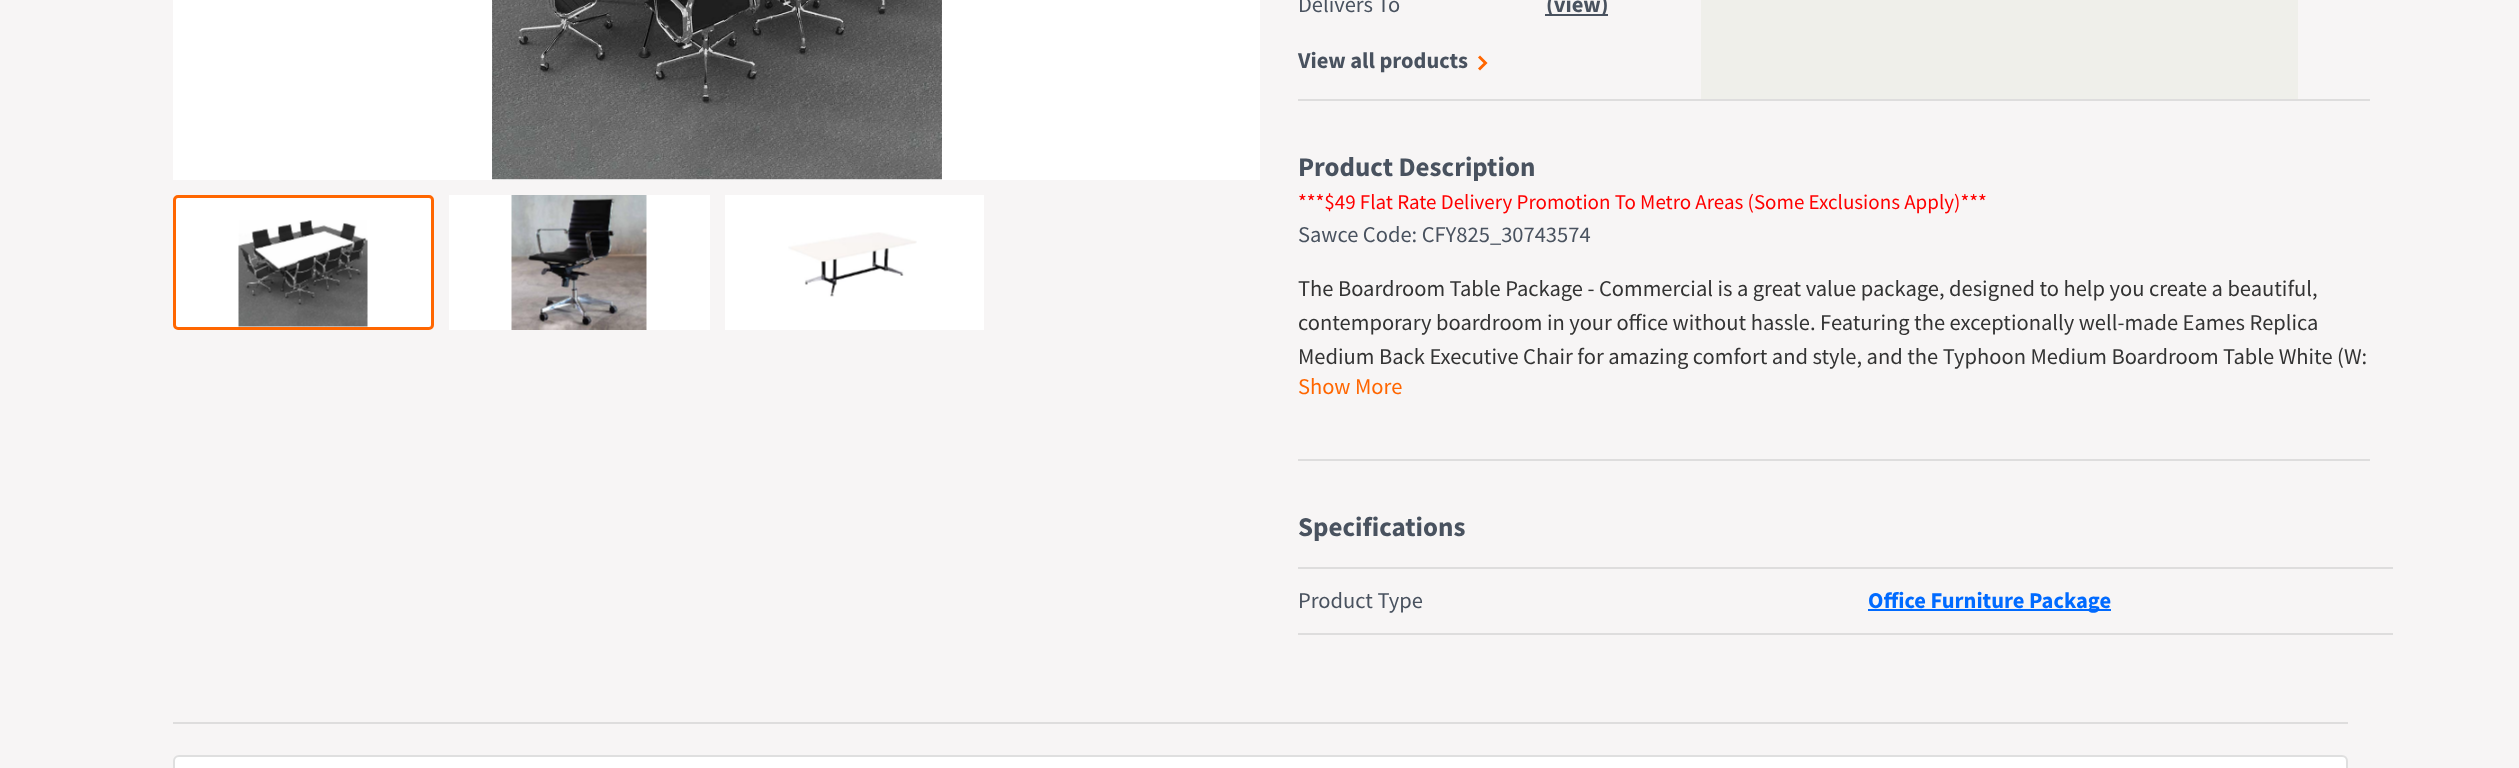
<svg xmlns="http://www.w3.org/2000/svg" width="2519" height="768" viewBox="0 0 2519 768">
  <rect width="100%" height="100%" fill="#f7f5f5"/>
  <path d="M173 0h1087v180H173z" fill="#fff"/>
  <image x="492" y="0" width="450" height="180" href="img/1.png"/>
  <rect x="173" y="195" width="261" height="135" rx="5" fill="#fff"/>
  <image x="238" y="220" width="130" height="107" href="img/2.png"/>
  <rect x="174.5" y="196.5" width="258" height="132" rx="3.5" fill="none" stroke="#f60" stroke-width="3"/>
  <path d="M449 195h261v135H449z" fill="#fff"/>
  <image x="511" y="195" width="136" height="135" href="img/3.png"/>
  <path d="M725 195h259v135H725z" fill="#fff"/>
  <image x="788" y="232" width="129" height="65" href="img/4.png"/>
  <path d="M1545 14h63v2H1545z" fill="#49525f"/>
  <path d="M1479 69.5L1485.5 63L1479 56.5" fill="none" stroke="#f60" stroke-width="2.9"/>
  <path d="M1701 0h597v99H1701z" fill="#efefea"/>
  <path d="M1298 99h1072v2H1298z" fill="#dedddd"/>
  <path d="M1298 459h1072v2H1298z" fill="#dedddd"/>
  <path d="M1298 567h1095v2H1298z" fill="#dedddd"/>
  <path d="M1298 633h1095v2H1298z" fill="#dedddd"/>
  <path d="M1868 609h243v2H1868z" fill="#006aff"/>
  <path d="M173 722h2175v2H173z" fill="#dedddd"/>
  <rect x="174" y="756" width="2173" height="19" rx="5" fill="#fff" stroke="#dfdfdf" stroke-width="2"/>
  <text x="1298" y="12" font-family="Source Sans Pro" font-size="22.5" fill="#49525f">Delivers To</text>
  <g font-family="Source Sans Pro" font-size="22.5" font-weight="bold" fill="#49525f">
    <text x="1546" y="12">(view)</text>
    <text x="1298" y="68">View all products</text>
  </g>
  <text x="1298" y="176" font-family="Source Sans Pro" font-size="27" font-weight="bold" fill="#49525f">Product Description</text>
  <text x="1298" y="209" font-family="Source Sans Pro" font-size="21" fill="#f00">***$49 Flat Rate Delivery Promotion To Metro Areas (Some Exclusions Apply)***</text>
  <text x="1298" y="242" font-family="Source Sans Pro" font-size="22.5" fill="#49525f">Sawce Code: CFY825_30743574</text>
  <g font-family="Source Sans Pro" font-size="22.5" fill="#333">
    <text x="1298" y="296">The Boardroom Table Package - Commercial is a great value package, designed to help you create a beautiful,</text>
    <text x="1298" y="330">contemporary boardroom in your office without hassle. Featuring the exceptionally well-made Eames Replica</text>
    <text x="1298" y="364">Medium Back Executive Chair for amazing comfort and style, and the Typhoon Medium Boardroom Table White (W:</text>
  </g>
  <text x="1298" y="394" font-family="Source Sans Pro" font-size="22.5" fill="#f60">Show More</text>
  <text x="1298" y="536" font-family="Source Sans Pro" font-size="27" font-weight="bold" fill="#49525f">Specifications</text>
  <text x="1298" y="608" font-family="Source Sans Pro" font-size="22.5" fill="#49525f">Product Type</text>
  <text x="1868" y="608" font-family="Source Sans Pro" font-size="22.5" font-weight="bold" fill="#006aff">Office Furniture Package</text>
</svg>
